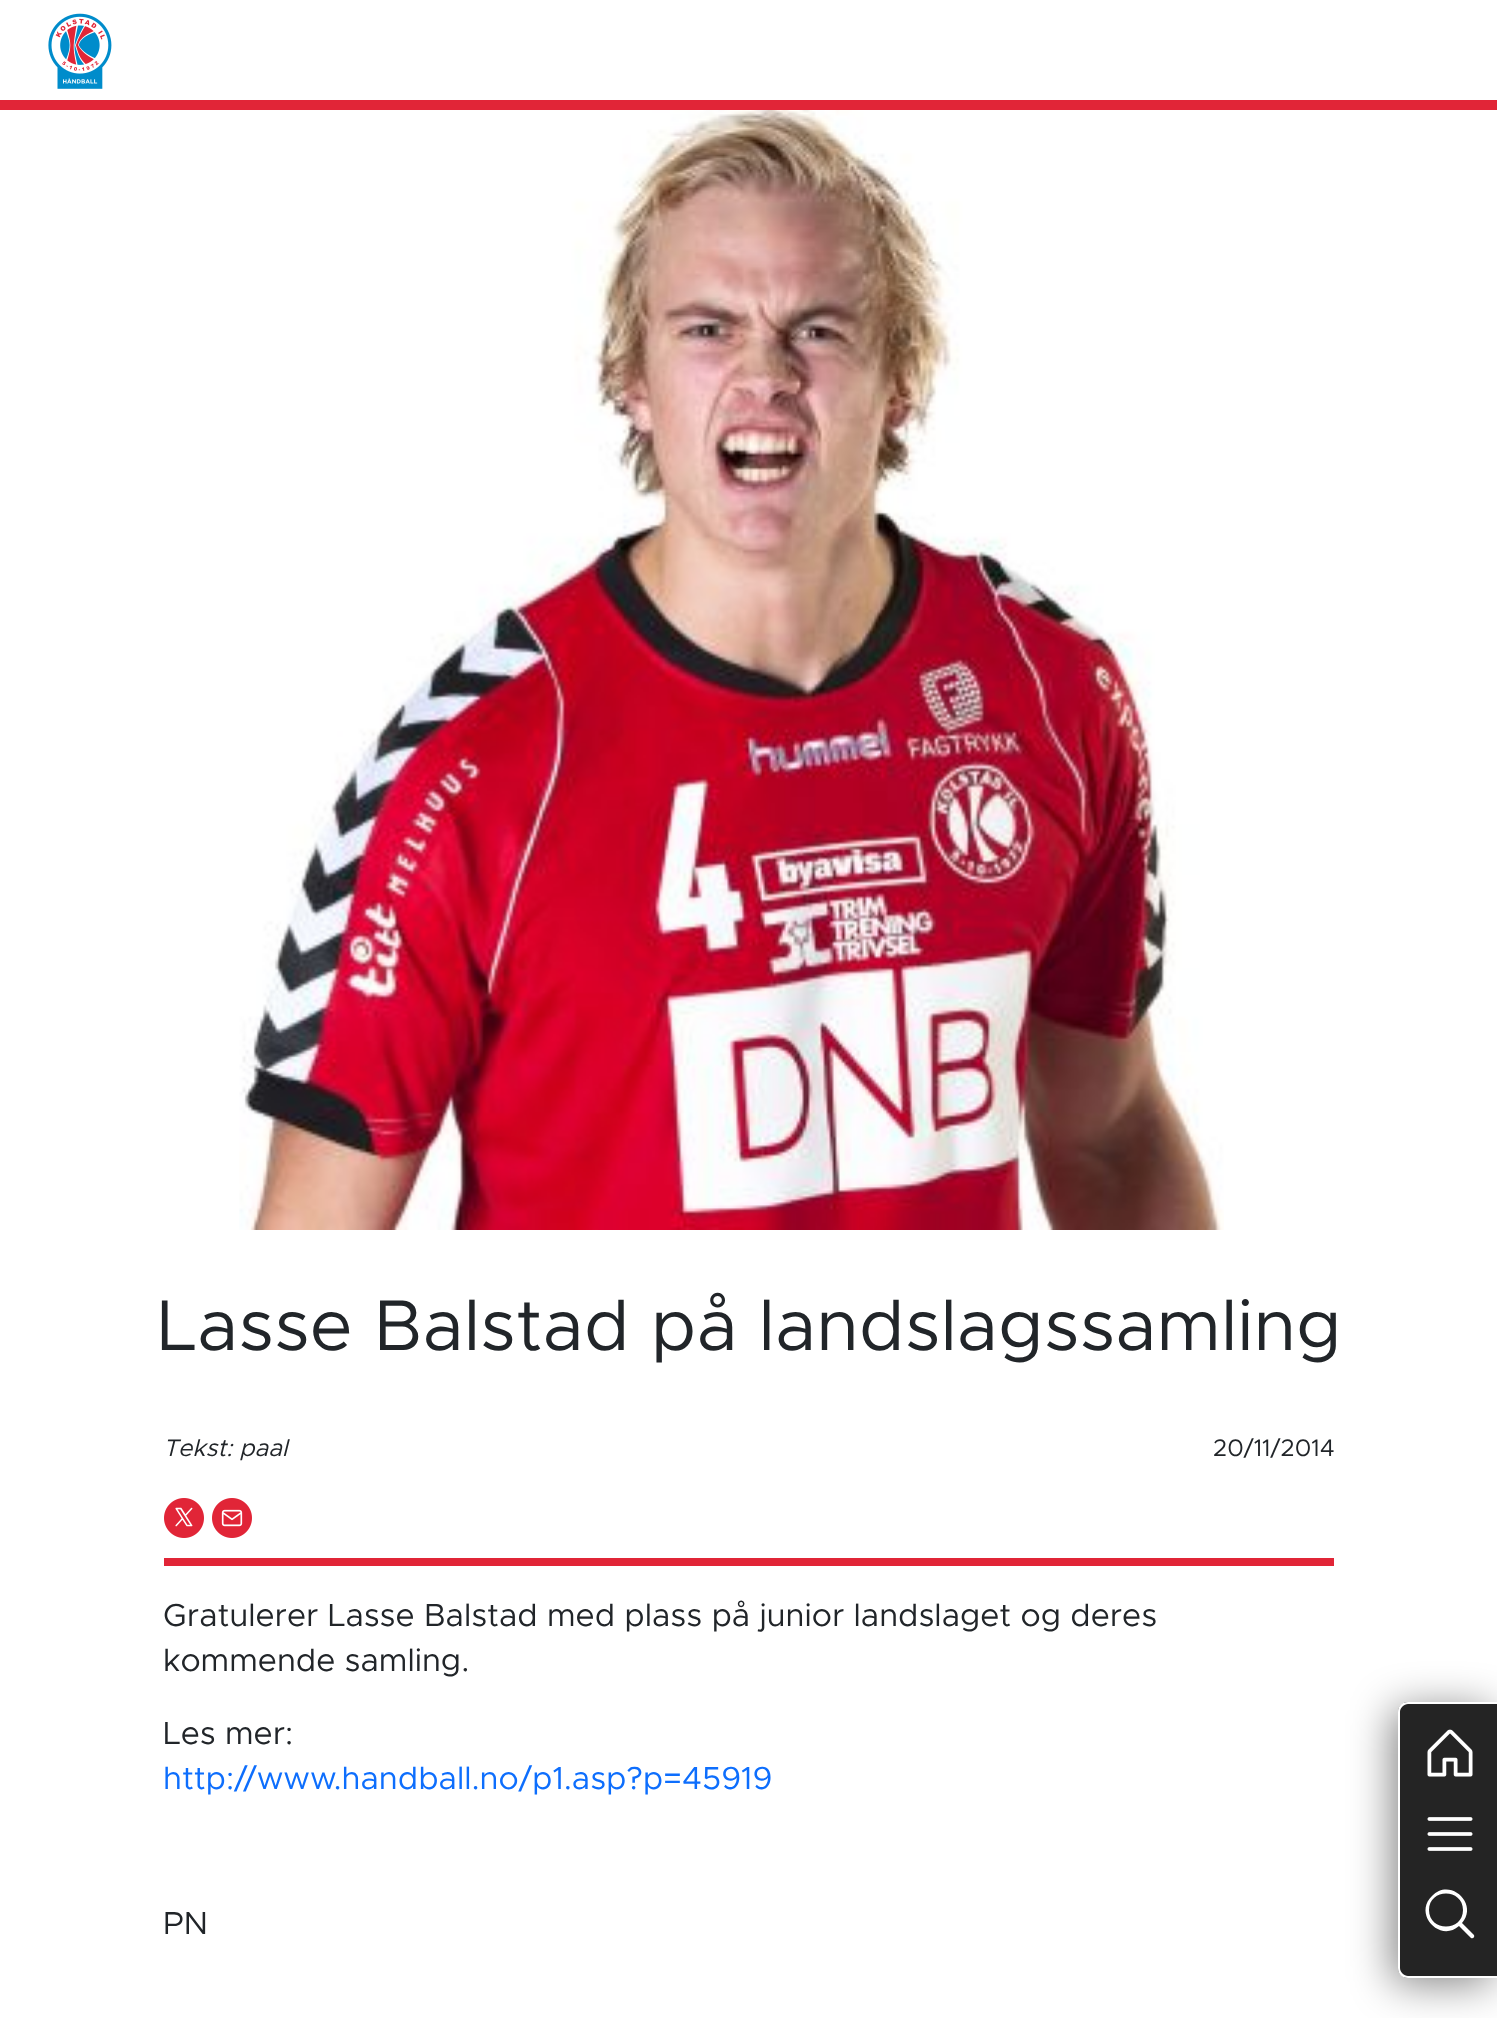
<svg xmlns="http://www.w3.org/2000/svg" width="1497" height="2018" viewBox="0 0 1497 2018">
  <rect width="100%" height="100%" fill="#fff"/>
  <image x="48" y="13" width="64" height="76" href="img/1.png"/>
  <path d="M0 100h1497v10H0z" fill="#e12537"/>
  <image x="239" y="110" width="985" height="1120" href="img/2.png"/>
  <image x="164" y="1498" width="40" height="40" href="img/3.png"/>
  <image x="212" y="1498" width="40" height="40" href="img/4.png"/>
  <path d="M164 1558h1170v8H164z" fill="#e12537"/>
  <rect x="1392" y="1708" width="100" height="276" rx="10" fill="#0000007a" filter="blur(21px)"/>
  <path d="M1408 1702H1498V1978H1408C1402.5 1978 1398 1973.5 1398 1968V1712C1398 1706.5 1402.5 1702 1408 1702Z" fill="#242424"/>
  <path d="M1408 1702H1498V1978H1408C1402 1978 1398 1974 1398 1968V1712C1398 1706 1402 1702 1408 1702ZM1408 1704H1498V1976H1408C1404 1976 1400 1972 1400 1968V1712C1400 1708 1404 1704 1408 1704Z" fill="#fff" fill-rule="evenodd"/>
  <image x="1427" y="1729" width="46" height="48" href="img/5.png"/>
  <image x="1427" y="1817" width="46" height="34" href="img/6.png"/>
  <path d="M1474 1935L1462 1923C1479 1904 1450 1877 1432 1896C1413 1914 1440 1943 1459 1926L1471 1938C1473 1939 1475 1937 1474 1935ZM1429 1910C1429 1888 1463 1888 1463 1910C1463 1932 1429 1932 1429 1910Z" fill="#fff"/>
  <text x="157" y="1350" font-family="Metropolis" font-size="72" fill="#212529">Lasse Balstad på landslagssamling</text>
  <text x="163" y="1456" font-family="Metropolis" font-size="24" font-style="italic" fill="#212529">Tekst: paal</text>
  <text x="1213" y="1456" font-family="Metropolis" font-size="24" fill="#212529">20/11/2014</text>
  <g font-family="Metropolis" font-size="32" fill="#212529">
    <text x="163" y="1626">Gratulerer Lasse Balstad med plass på junior landslaget og deres</text>
    <text x="163" y="1671">kommende samling.</text>
    <text x="163" y="1744">Les mer:</text>
  </g>
  <text x="163" y="1789" font-family="Metropolis" font-size="32" fill="#0d6efd">http://www.handball.no/p1.asp?p=45919</text>
  <text x="163" y="1934" font-family="Metropolis" font-size="32" fill="#212529">PN</text>
</svg>
